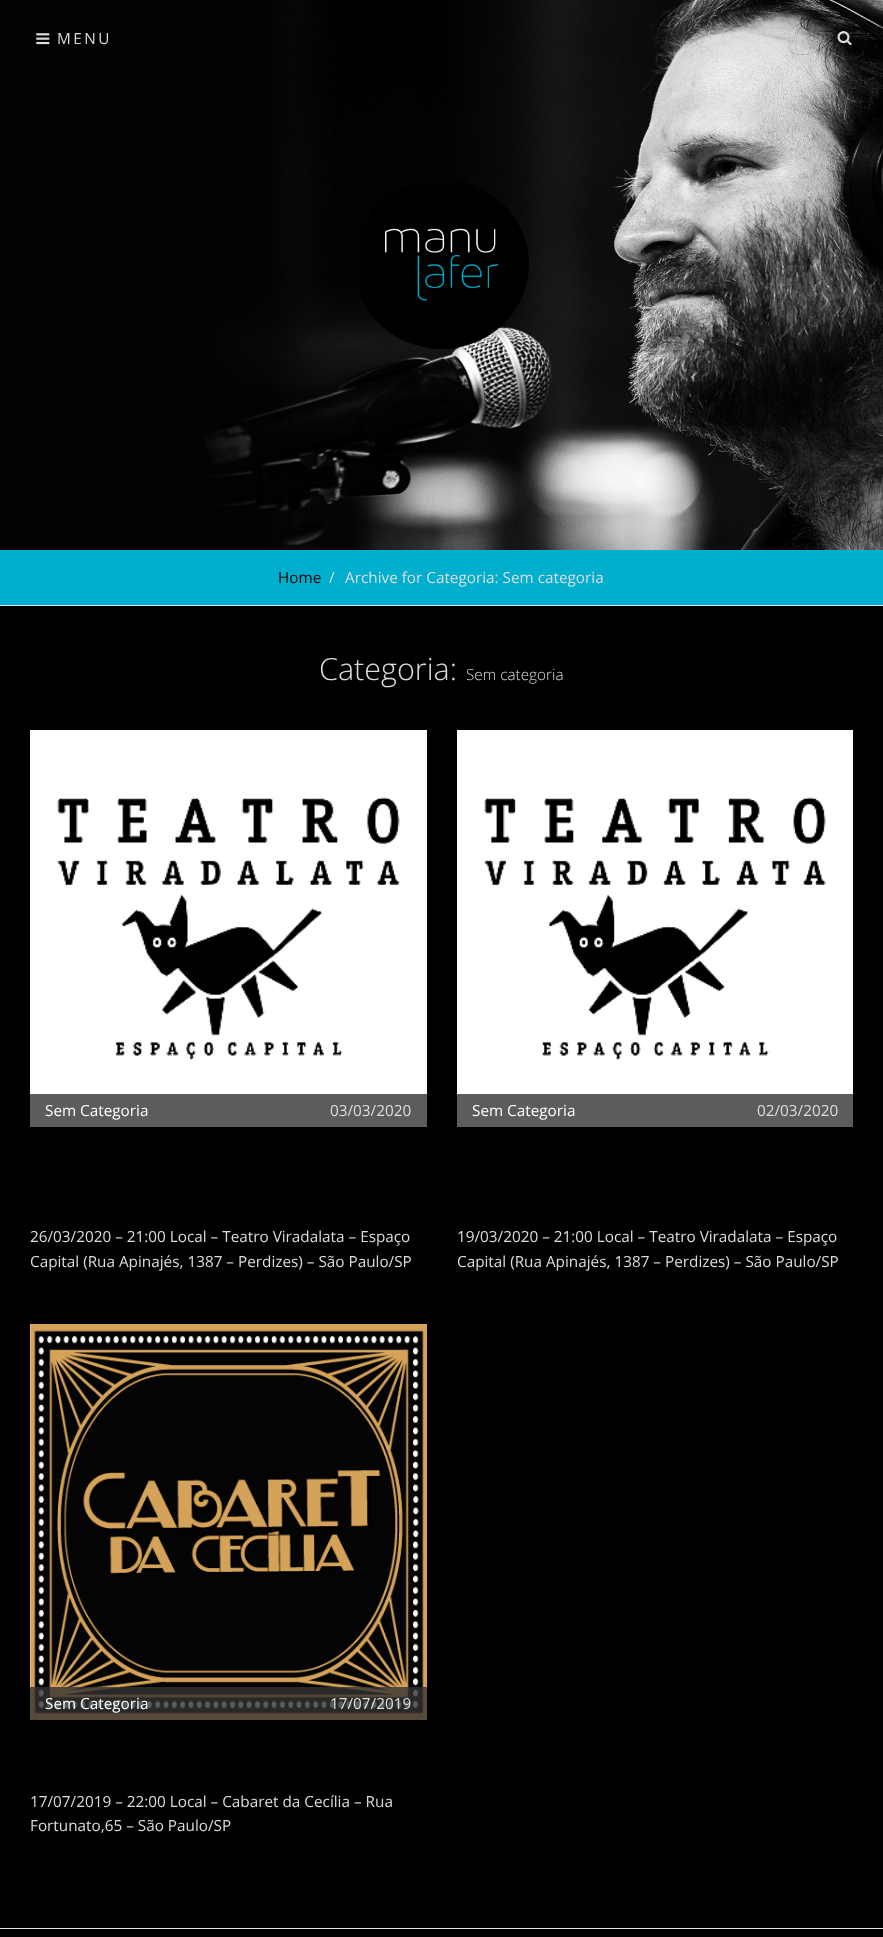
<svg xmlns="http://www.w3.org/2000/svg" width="883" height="1937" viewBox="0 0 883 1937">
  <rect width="100%" height="100%" fill="#00afce"/>
  <image x="0" y="0" width="883" height="550" href="img/1.png"/>
  <image x="359" y="183" width="170" height="166" href="img/2.png"/>
  <image x="36" y="33" width="14" height="12" href="img/3.png"/>
  <image x="837" y="31" width="15" height="14" href="img/4.png"/>
  <path d="M0 605h883v1H0z" fill="#e5e5e5"/>
  <path d="M0 606h883v1322H0z" fill="#000"/>
  <path d="M0 1928h883v1H0z" fill="#e5e5e5"/>
  <image x="30" y="730" width="397" height="364" href="img/5.png"/>
  <path d="M30 1094h397v33H30z" fill="#5c5c5c"/>
  <image x="457" y="730" width="396" height="364" href="img/6.png"/>
  <path d="M457 1094h396v33H457z" fill="#5c5c5c"/>
  <image x="30" y="1324" width="397" height="396" href="img/7.png"/>
  <path d="M30 1687h397v33H30z" fill="#333333cc"/>
  <path d="M0 1929h883v8H0z" fill="#000"/>
  <text x="57" y="44" font-family="Open Sans" font-size="15.3" letter-spacing="2.5" fill="#ddd">MENU</text>
  <text x="278" y="583" font-family="Open Sans" font-size="15.3" fill="#000">Home</text>
  <g font-family="Open Sans" font-size="15.3" fill="#ddd">
    <text x="329" y="583">/</text>
    <text x="345" y="583">Archive for Categoria: Sem categoria</text>
  </g>
  <text x="319" y="680" font-family="Open Sans" font-size="30.5" font-weight="300" fill="#ddd">Categoria:</text>
  <text x="466" y="680" font-family="Open Sans" font-size="15.3" font-weight="300" fill="#ddd">Sem categoria</text>
  <text x="45" y="1116" font-family="Open Sans" font-size="15.3" fill="#fff">Sem Categoria</text>
  <g font-family="Open Sans" font-size="15.3" fill="#ddd">
    <text x="330" y="1116">03/03/2020</text>
    <text x="30" y="1242">26/03/2020 – 21:00 Local – Teatro Viradalata – Espaço</text>
    <text x="30" y="1267">Capital (Rua Apinajés, 1387 – Perdizes) – São Paulo/SP</text>
  </g>
  <text x="472" y="1116" font-family="Open Sans" font-size="15.3" fill="#fff">Sem Categoria</text>
  <g font-family="Open Sans" font-size="15.3" fill="#ddd">
    <text x="757" y="1116">02/03/2020</text>
    <text x="457" y="1242">19/03/2020 – 21:00 Local – Teatro Viradalata – Espaço</text>
    <text x="457" y="1267">Capital (Rua Apinajés, 1387 – Perdizes) – São Paulo/SP</text>
  </g>
  <text x="45" y="1709" font-family="Open Sans" font-size="15.3" fill="#fff">Sem Categoria</text>
  <g font-family="Open Sans" font-size="15.3" fill="#ddd">
    <text x="330" y="1709">17/07/2019</text>
    <text x="30" y="1807">17/07/2019 – 22:00 Local – Cabaret da Cecília – Rua</text>
    <text x="30" y="1831">Fortunato,65 – São Paulo/SP</text>
  </g>
</svg>
